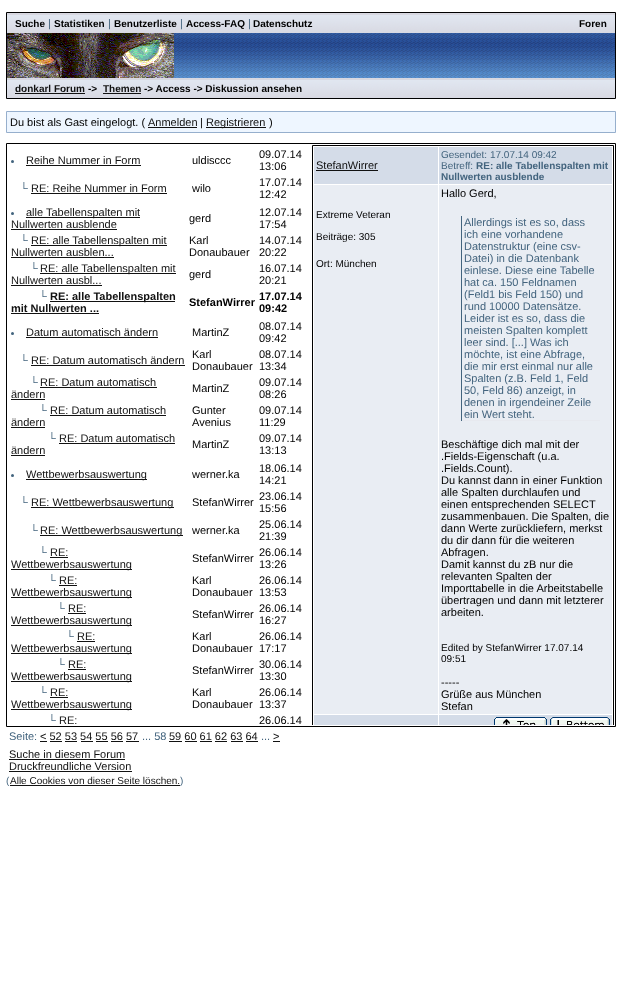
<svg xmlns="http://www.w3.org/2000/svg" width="622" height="989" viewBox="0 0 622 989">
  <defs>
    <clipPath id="clip1"><path d="M312 145h302v580H312z"/></clipPath>
  </defs>
  <rect width="100%" height="100%" fill="#fff"/>
  <path d="M6.5 12.5h609v86H6.5z" fill="none" stroke="#000"/>
  <image x="7" y="13" width="608" height="20" href="img/1.png"/>
  <image x="174" y="33" width="441" height="45" href="img/2.png"/>
  <image x="7" y="33" width="167" height="45" href="img/3.png"/>
  <image x="7" y="78" width="577" height="20" href="img/4.png"/>
  <path d="M15 93h70v1H15z" fill="#111"/>
  <path d="M103 93h38v1H103z" fill="#111"/>
  <image x="584" y="78" width="31" height="20" href="img/5.png"/>
  <path d="M6.5 111.5h609v21H6.5z" fill="none" stroke="#96afcd"/>
  <path d="M7 112h608v20H7z" fill="#eef6ff"/>
  <path d="M148 127h49v1H148z" fill="#111"/>
  <path d="M206 127h60v1H206z" fill="#111"/>
  <path d="M6.5 143.5h609v583H6.5z" fill="none" stroke="#000"/>
  <circle cx="12.5" cy="161.5" r="1.5" fill="#43647e"/>
  <path d="M26 165h115v1H26z" fill="#111"/>
  <path d="M31 193h136v1H31z" fill="#111"/>
  <circle cx="12.5" cy="213.5" r="1.5" fill="#43647e"/>
  <path d="M26 217h114v1H26z" fill="#111"/>
  <path d="M11 229h106v1H11z" fill="#111"/>
  <path d="M31 245h136v1H31z" fill="#111"/>
  <path d="M11 257h103v1H11z" fill="#111"/>
  <path d="M40 273h136v1H40z" fill="#111"/>
  <path d="M11 285h91v1H11z" fill="#111"/>
  <path d="M50 301h125v1H50z" fill="#111"/>
  <path d="M11 313h88v1H11z" fill="#111"/>
  <circle cx="12.5" cy="333.5" r="1.5" fill="#43647e"/>
  <path d="M26 337h132v1H26z" fill="#111"/>
  <path d="M31 365h154v1H31z" fill="#111"/>
  <path d="M40 387h117v1H40z" fill="#111"/>
  <path d="M11 399h34v1H11z" fill="#111"/>
  <path d="M50 415h116v1H50z" fill="#111"/>
  <path d="M11 427h34v1H11z" fill="#111"/>
  <path d="M59 443h116v1H59z" fill="#111"/>
  <path d="M11 455h34v1H11z" fill="#111"/>
  <circle cx="12.5" cy="475.5" r="1.5" fill="#43647e"/>
  <path d="M26 479h121v1H26z" fill="#111"/>
  <path d="M31 507h143v1H31z" fill="#111"/>
  <path d="M40 535h143v1H40z" fill="#111"/>
  <path d="M50 557h18v1H50z" fill="#111"/>
  <path d="M11 569h121v1H11z" fill="#111"/>
  <path d="M59 585h18v1H59z" fill="#111"/>
  <path d="M11 597h121v1H11z" fill="#111"/>
  <path d="M68 613h18v1H68z" fill="#111"/>
  <path d="M11 625h121v1H11z" fill="#111"/>
  <path d="M77 641h18v1H77z" fill="#111"/>
  <path d="M11 653h121v1H11z" fill="#111"/>
  <path d="M68 669h18v1H68z" fill="#111"/>
  <path d="M11 681h121v1H11z" fill="#111"/>
  <path d="M50 697h18v1H50z" fill="#111"/>
  <path d="M11 709h121v1H11z" fill="#111"/>
  <g clip-path="url(#clip1)">
    <path d="M312.5 145.5h301v594H312.5z" fill="none" stroke="#000"/>
  </g>
  <path d="M314 147h124v37H314z" fill="#d4dce8"/>
  <path d="M316 170h62v1H316z" fill="#111"/>
  <path d="M439 147h173v37H439z" fill="#d4dce8"/>
  <path d="M314 185h124v529H314z" fill="#e9edf3"/>
  <path d="M439 185h173v529H439z" fill="#e9edf3"/>
  <path d="M461 420h139v1H461z" fill="#e7e9ef"/>
  <path d="M461 216h1v205H461z" fill="#43647e"/>
  <path d="M314 715h124v10H314z" fill="#d4dce8"/>
  <path d="M439 715h173v10H439z" fill="#d4dce8"/>
  <image x="494" y="717" width="53" height="8" href="img/6.png"/>
  <image x="550" y="717" width="60" height="8" href="img/7.png"/>
  <path d="M40 741h7v1H40z" fill="#111"/>
  <path d="M169 741h13v1H169z" fill="#111"/>
  <path d="M273 741h7v1H273z" fill="#111"/>
  <path d="M50 741h12v1H50z" fill="#111"/>
  <path d="M65 741h12v1H65z" fill="#111"/>
  <path d="M81 741h12v1H81z" fill="#111"/>
  <path d="M96 741h12v1H96z" fill="#111"/>
  <path d="M111 741h12v1H111z" fill="#111"/>
  <path d="M126 741h13v1H126z" fill="#111"/>
  <path d="M185 741h12v1H185z" fill="#111"/>
  <path d="M200 741h12v1H200z" fill="#111"/>
  <path d="M215 741h12v1H215z" fill="#111"/>
  <path d="M231 741h12v1H231z" fill="#111"/>
  <path d="M246 741h12v1H246z" fill="#111"/>
  <path d="M9 759h116v1H9z" fill="#111"/>
  <path d="M9 771h123v1H9z" fill="#111"/>
  <path d="M10 785h170v1H10z" fill="#111"/>
  <text x="15" y="27" font-family="Liberation Sans" font-size="10" font-weight="bold" fill="#000">Suche</text>
  <text x="48" y="27" font-family="Liberation Sans" font-size="11" fill="#43647e">|</text>
  <text x="54" y="27" font-family="Liberation Sans" font-size="10" font-weight="bold" fill="#000">Statistiken</text>
  <text x="108" y="27" font-family="Liberation Sans" font-size="11" fill="#43647e">|</text>
  <text x="114" y="27" font-family="Liberation Sans" font-size="10" font-weight="bold" fill="#000">Benutzerliste</text>
  <text x="180" y="27" font-family="Liberation Sans" font-size="11" fill="#43647e">|</text>
  <text x="186" y="27" font-family="Liberation Sans" font-size="10" font-weight="bold" fill="#000">Access-FAQ</text>
  <text x="248" y="27" font-family="Liberation Sans" font-size="11" fill="#43647e">|</text>
  <g font-family="Liberation Sans" font-size="10" font-weight="bold" fill="#000">
    <text x="253" y="27">Datenschutz</text>
    <text x="579" y="27">Foren</text>
  </g>
  <text x="15" y="92" font-family="Liberation Sans" font-size="10" font-weight="bold" fill="#111">donkarl Forum</text>
  <text x="88" y="92" font-family="Liberation Sans" font-size="10" font-weight="bold" fill="#000">-&gt;</text>
  <text x="103" y="92" font-family="Liberation Sans" font-size="10" font-weight="bold" fill="#111">Themen</text>
  <text x="144" y="92" font-family="Liberation Sans" font-size="10" font-weight="bold" fill="#000">-&gt; Access -&gt; Diskussion ansehen</text>
  <text x="10" y="126" font-family="Liberation Sans" font-size="11" fill="#000">Du bist als Gast eingelogt. (</text>
  <text x="148" y="126" font-family="Liberation Sans" font-size="11" fill="#111">Anmelden</text>
  <text x="200" y="126" font-family="Liberation Sans" font-size="11" fill="#000">|</text>
  <text x="206" y="126" font-family="Liberation Sans" font-size="11" fill="#111">Registrieren</text>
  <text x="269" y="126" font-family="Liberation Sans" font-size="11" fill="#000">)</text>
  <text x="26" y="164" font-family="Liberation Sans" font-size="11" fill="#111">Reihe Nummer in Form</text>
  <g font-family="Liberation Sans" font-size="11" fill="#000">
    <text x="192" y="164">uldisccc</text>
    <text x="259" y="158">09.07.14</text>
    <text x="259" y="170">13:06</text>
  </g>
  <text x="20" y="192" font-family="Liberation Sans" font-size="11" fill="#43647e">└</text>
  <text x="31" y="192" font-family="Liberation Sans" font-size="11" fill="#111">RE: Reihe Nummer in Form</text>
  <g font-family="Liberation Sans" font-size="11" fill="#000">
    <text x="192" y="192">wilo</text>
    <text x="259" y="186">17.07.14</text>
    <text x="259" y="198">12:42</text>
  </g>
  <g font-family="Liberation Sans" font-size="11" fill="#111">
    <text x="26" y="216">alle Tabellenspalten mit</text>
    <text x="11" y="228">Nullwerten ausblende</text>
  </g>
  <g font-family="Liberation Sans" font-size="11" fill="#000">
    <text x="189" y="222">gerd</text>
    <text x="259" y="216">12.07.14</text>
    <text x="259" y="228">17:54</text>
  </g>
  <text x="20" y="244" font-family="Liberation Sans" font-size="11" fill="#43647e">└</text>
  <g font-family="Liberation Sans" font-size="11" fill="#111">
    <text x="31" y="244">RE: alle Tabellenspalten mit</text>
    <text x="11" y="256">Nullwerten ausblen...</text>
  </g>
  <g font-family="Liberation Sans" font-size="11" fill="#000">
    <text x="189" y="244">Karl</text>
    <text x="189" y="256">Donaubauer</text>
    <text x="259" y="244">14.07.14</text>
    <text x="259" y="256">20:22</text>
  </g>
  <text x="30" y="272" font-family="Liberation Sans" font-size="11" fill="#43647e">└</text>
  <g font-family="Liberation Sans" font-size="11" fill="#111">
    <text x="40" y="272">RE: alle Tabellenspalten mit</text>
    <text x="11" y="284">Nullwerten ausbl...</text>
  </g>
  <g font-family="Liberation Sans" font-size="11" fill="#000">
    <text x="189" y="278">gerd</text>
    <text x="259" y="272">16.07.14</text>
    <text x="259" y="284">20:21</text>
  </g>
  <text x="39" y="300" font-family="Liberation Sans" font-size="11" fill="#43647e">└</text>
  <g font-family="Liberation Sans" font-size="11" font-weight="bold" fill="#111">
    <text x="50" y="300">RE: alle Tabellenspalten</text>
    <text x="11" y="312">mit Nullwerten ...</text>
  </g>
  <g font-family="Liberation Sans" font-size="11" font-weight="bold" fill="#000">
    <text x="189" y="306">StefanWirrer</text>
    <text x="259" y="300">17.07.14</text>
    <text x="259" y="312">09:42</text>
  </g>
  <text x="26" y="336" font-family="Liberation Sans" font-size="11" fill="#111">Datum automatisch ändern</text>
  <g font-family="Liberation Sans" font-size="11" fill="#000">
    <text x="192" y="336">MartinZ</text>
    <text x="259" y="330">08.07.14</text>
    <text x="259" y="342">09:42</text>
  </g>
  <text x="20" y="364" font-family="Liberation Sans" font-size="11" fill="#43647e">└</text>
  <text x="31" y="364" font-family="Liberation Sans" font-size="11" fill="#111">RE: Datum automatisch ändern</text>
  <g font-family="Liberation Sans" font-size="11" fill="#000">
    <text x="192" y="358">Karl</text>
    <text x="192" y="370">Donaubauer</text>
    <text x="259" y="358">08.07.14</text>
    <text x="259" y="370">13:34</text>
  </g>
  <text x="30" y="386" font-family="Liberation Sans" font-size="11" fill="#43647e">└</text>
  <g font-family="Liberation Sans" font-size="11" fill="#111">
    <text x="40" y="386">RE: Datum automatisch</text>
    <text x="11" y="398">ändern</text>
  </g>
  <g font-family="Liberation Sans" font-size="11" fill="#000">
    <text x="192" y="392">MartinZ</text>
    <text x="259" y="386">09.07.14</text>
    <text x="259" y="398">08:26</text>
  </g>
  <text x="39" y="414" font-family="Liberation Sans" font-size="11" fill="#43647e">└</text>
  <g font-family="Liberation Sans" font-size="11" fill="#111">
    <text x="50" y="414">RE: Datum automatisch</text>
    <text x="11" y="426">ändern</text>
  </g>
  <g font-family="Liberation Sans" font-size="11" fill="#000">
    <text x="192" y="414">Gunter</text>
    <text x="192" y="426">Avenius</text>
    <text x="259" y="414">09.07.14</text>
    <text x="259" y="426">11:29</text>
  </g>
  <text x="48" y="442" font-family="Liberation Sans" font-size="11" fill="#43647e">└</text>
  <g font-family="Liberation Sans" font-size="11" fill="#111">
    <text x="59" y="442">RE: Datum automatisch</text>
    <text x="11" y="454">ändern</text>
  </g>
  <g font-family="Liberation Sans" font-size="11" fill="#000">
    <text x="192" y="448">MartinZ</text>
    <text x="259" y="442">09.07.14</text>
    <text x="259" y="454">13:13</text>
  </g>
  <text x="26" y="478" font-family="Liberation Sans" font-size="11" fill="#111">Wettbewerbsauswertung</text>
  <g font-family="Liberation Sans" font-size="11" fill="#000">
    <text x="192" y="478">werner.ka</text>
    <text x="259" y="472">18.06.14</text>
    <text x="259" y="484">14:21</text>
  </g>
  <text x="20" y="506" font-family="Liberation Sans" font-size="11" fill="#43647e">└</text>
  <text x="31" y="506" font-family="Liberation Sans" font-size="11" fill="#111">RE: Wettbewerbsauswertung</text>
  <g font-family="Liberation Sans" font-size="11" fill="#000">
    <text x="192" y="506">StefanWirrer</text>
    <text x="259" y="500">23.06.14</text>
    <text x="259" y="512">15:56</text>
  </g>
  <text x="30" y="534" font-family="Liberation Sans" font-size="11" fill="#43647e">└</text>
  <text x="40" y="534" font-family="Liberation Sans" font-size="11" fill="#111">RE: Wettbewerbsauswertung</text>
  <g font-family="Liberation Sans" font-size="11" fill="#000">
    <text x="192" y="534">werner.ka</text>
    <text x="259" y="528">25.06.14</text>
    <text x="259" y="540">21:39</text>
  </g>
  <text x="39" y="556" font-family="Liberation Sans" font-size="11" fill="#43647e">└</text>
  <g font-family="Liberation Sans" font-size="11" fill="#111">
    <text x="50" y="556">RE:</text>
    <text x="11" y="568">Wettbewerbsauswertung</text>
  </g>
  <g font-family="Liberation Sans" font-size="11" fill="#000">
    <text x="192" y="562">StefanWirrer</text>
    <text x="259" y="556">26.06.14</text>
    <text x="259" y="568">13:26</text>
  </g>
  <text x="48" y="584" font-family="Liberation Sans" font-size="11" fill="#43647e">└</text>
  <g font-family="Liberation Sans" font-size="11" fill="#111">
    <text x="59" y="584">RE:</text>
    <text x="11" y="596">Wettbewerbsauswertung</text>
  </g>
  <g font-family="Liberation Sans" font-size="11" fill="#000">
    <text x="192" y="584">Karl</text>
    <text x="192" y="596">Donaubauer</text>
    <text x="259" y="584">26.06.14</text>
    <text x="259" y="596">13:53</text>
  </g>
  <text x="57" y="612" font-family="Liberation Sans" font-size="11" fill="#43647e">└</text>
  <g font-family="Liberation Sans" font-size="11" fill="#111">
    <text x="68" y="612">RE:</text>
    <text x="11" y="624">Wettbewerbsauswertung</text>
  </g>
  <g font-family="Liberation Sans" font-size="11" fill="#000">
    <text x="192" y="618">StefanWirrer</text>
    <text x="259" y="612">26.06.14</text>
    <text x="259" y="624">16:27</text>
  </g>
  <text x="66" y="640" font-family="Liberation Sans" font-size="11" fill="#43647e">└</text>
  <g font-family="Liberation Sans" font-size="11" fill="#111">
    <text x="77" y="640">RE:</text>
    <text x="11" y="652">Wettbewerbsauswertung</text>
  </g>
  <g font-family="Liberation Sans" font-size="11" fill="#000">
    <text x="192" y="640">Karl</text>
    <text x="192" y="652">Donaubauer</text>
    <text x="259" y="640">26.06.14</text>
    <text x="259" y="652">17:17</text>
  </g>
  <text x="57" y="668" font-family="Liberation Sans" font-size="11" fill="#43647e">└</text>
  <g font-family="Liberation Sans" font-size="11" fill="#111">
    <text x="68" y="668">RE:</text>
    <text x="11" y="680">Wettbewerbsauswertung</text>
  </g>
  <g font-family="Liberation Sans" font-size="11" fill="#000">
    <text x="192" y="674">StefanWirrer</text>
    <text x="259" y="668">30.06.14</text>
    <text x="259" y="680">13:30</text>
  </g>
  <text x="39" y="696" font-family="Liberation Sans" font-size="11" fill="#43647e">└</text>
  <g font-family="Liberation Sans" font-size="11" fill="#111">
    <text x="50" y="696">RE:</text>
    <text x="11" y="708">Wettbewerbsauswertung</text>
  </g>
  <g font-family="Liberation Sans" font-size="11" fill="#000">
    <text x="192" y="696">Karl</text>
    <text x="192" y="708">Donaubauer</text>
    <text x="259" y="696">26.06.14</text>
    <text x="259" y="708">13:37</text>
  </g>
  <text x="48" y="724" font-family="Liberation Sans" font-size="11" fill="#43647e">└</text>
  <text x="59" y="724" font-family="Liberation Sans" font-size="11" fill="#111">RE:</text>
  <text x="259" y="724" font-family="Liberation Sans" font-size="11" fill="#000">26.06.14</text>
  <text x="316" y="169" font-family="Liberation Sans" font-size="11" fill="#111">StefanWirrer</text>
  <g font-family="Liberation Sans" font-size="10" fill="#43647e">
    <text x="441" y="158">Gesendet: 17.07.14 09:42</text>
    <text x="441" y="169">Betreff:</text>
  </g>
  <g font-family="Liberation Sans" font-size="10" font-weight="bold" fill="#43647e">
    <text x="476" y="169">RE: alle Tabellenspalten mit</text>
    <text x="441" y="180">Nullwerten ausblende</text>
  </g>
  <g font-family="Liberation Sans" font-size="10" fill="#000">
    <text x="316" y="218">Extreme Veteran</text>
    <text x="316" y="240">Beiträge: 305</text>
    <text x="316" y="267">Ort: München</text>
  </g>
  <text x="441" y="197" font-family="Liberation Sans" font-size="11" fill="#000">Hallo Gerd,</text>
  <g font-family="Liberation Sans" font-size="11" fill="#43647e">
    <text x="464" y="226">Allerdings ist es so, dass</text>
    <text x="464" y="238">ich eine vorhandene</text>
    <text x="464" y="250">Datenstruktur (eine csv-</text>
    <text x="464" y="262">Datei) in die Datenbank</text>
    <text x="464" y="274">einlese. Diese eine Tabelle</text>
    <text x="464" y="286">hat ca. 150 Feldnamen</text>
    <text x="464" y="298">(Feld1 bis Feld 150) und</text>
    <text x="464" y="310">rund 10000 Datensätze.</text>
    <text x="464" y="322">Leider ist es so, dass die</text>
    <text x="464" y="334">meisten Spalten komplett</text>
    <text x="464" y="346">leer sind. [...] Was ich</text>
    <text x="464" y="358">möchte, ist eine Abfrage,</text>
    <text x="464" y="370">die mir erst einmal nur alle</text>
    <text x="464" y="382">Spalten (z.B. Feld 1, Feld</text>
    <text x="464" y="394">50, Feld 86) anzeigt, in</text>
    <text x="464" y="406">denen in irgendeiner Zeile</text>
    <text x="464" y="418">ein Wert steht.</text>
  </g>
  <g font-family="Liberation Sans" font-size="11" fill="#000">
    <text x="441" y="448">Beschäftige dich mal mit der</text>
    <text x="441" y="460">.Fields-Eigenschaft (u.a.</text>
    <text x="441" y="472">.Fields.Count).</text>
    <text x="441" y="484">Du kannst dann in einer Funktion</text>
    <text x="441" y="496">alle Spalten durchlaufen und</text>
    <text x="441" y="508">einen entsprechenden SELECT</text>
    <text x="441" y="520">zusammenbauen. Die Spalten, die</text>
    <text x="441" y="532">dann Werte zurückliefern, merkst</text>
    <text x="441" y="544">du dir dann für die weiteren</text>
    <text x="441" y="556">Abfragen.</text>
    <text x="441" y="568">Damit kannst du zB nur die</text>
    <text x="441" y="580">relevanten Spalten der</text>
    <text x="441" y="592">Importtabelle in die Arbeitstabelle</text>
    <text x="441" y="604">übertragen und dann mit letzterer</text>
    <text x="441" y="616">arbeiten.</text>
  </g>
  <g font-family="Liberation Sans" font-size="10" fill="#000">
    <text x="441" y="651">Edited by StefanWirrer 17.07.14</text>
    <text x="441" y="662">09:51</text>
  </g>
  <g font-family="Liberation Sans" font-size="11" fill="#000">
    <text x="441" y="686">-----</text>
    <text x="441" y="698">Grüße aus München</text>
    <text x="441" y="710">Stefan</text>
  </g>
  <text x="9" y="740" font-family="Liberation Sans" font-size="11" fill="#43647e">Seite:</text>
  <text x="40" y="740" font-family="Liberation Sans" font-size="11" fill="#111">&lt; 52 53 54 55 56 57</text>
  <text x="142" y="740" font-family="Liberation Sans" font-size="11" fill="#43647e">... 58</text>
  <text x="169" y="740" font-family="Liberation Sans" font-size="11" fill="#111">59 60 61 62 63 64</text>
  <text x="261" y="740" font-family="Liberation Sans" font-size="11" fill="#43647e">...</text>
  <g font-family="Liberation Sans" font-size="11" fill="#111">
    <text x="273" y="740">&gt;</text>
    <text x="9" y="758">Suche in diesem Forum</text>
    <text x="9" y="770">Druckfreundliche Version</text>
  </g>
  <text x="6" y="784" font-family="Liberation Sans" font-size="10" fill="#43647e">(</text>
  <text x="10" y="784" font-family="Liberation Sans" font-size="10" fill="#111">Alle Cookies von dieser Seite löschen.</text>
  <text x="180" y="784" font-family="Liberation Sans" font-size="10" fill="#43647e">)</text>
</svg>
